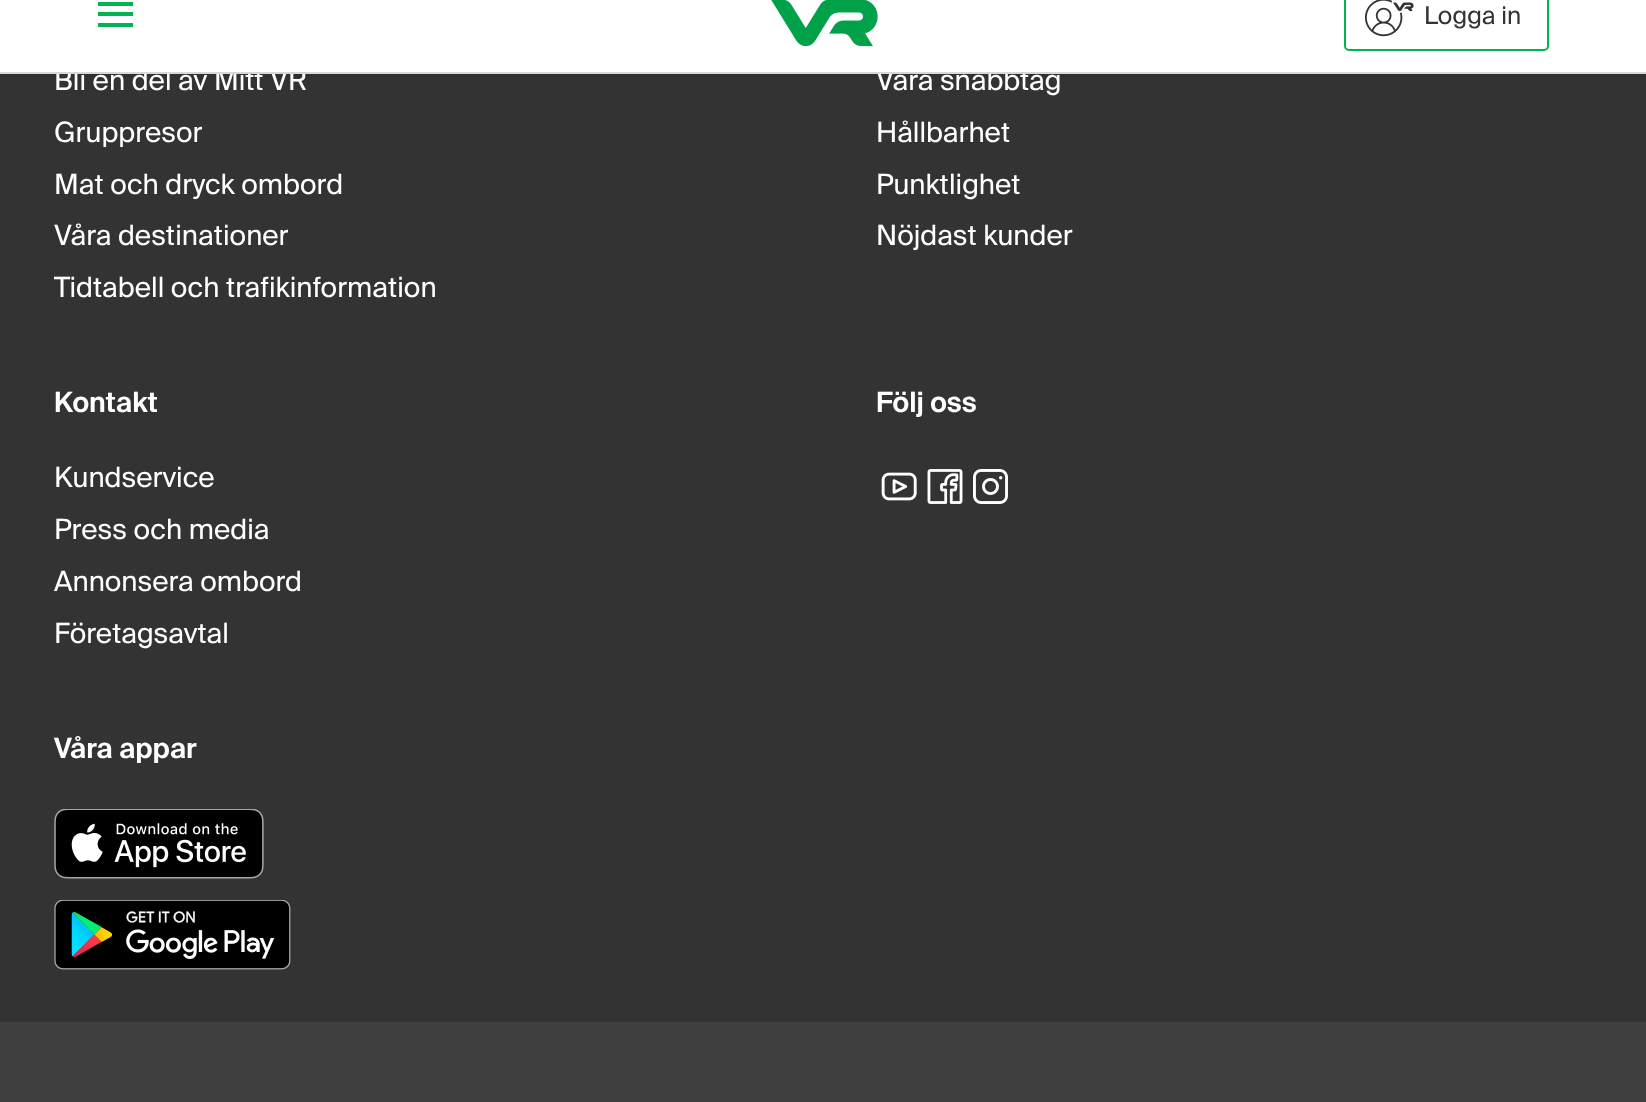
<svg xmlns="http://www.w3.org/2000/svg" width="1646" height="1102" viewBox="0 0 1646 1102">
  <rect width="100%" height="100%" fill="#333"/>
  <path d="M0 -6h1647v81H0z" fill="#0000001a" filter="blur(2px)"/>
  <path d="M0 0h1646v72H0z" fill="#fff"/>
  <path d="M98 2h35v4H98z" fill="#00b451"/>
  <path d="M98 12h35v4H98z" fill="#00b451"/>
  <path d="M98 23h35v4H98z" fill="#00b451"/>
  <image x="771" y="0" width="107" height="47" href="img/1.png"/>
  <rect x="1345" y="-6" width="203" height="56" rx="4" fill="none" stroke="#00b451" stroke-width="2"/>
  <image x="1365" y="0" width="49" height="37" href="img/2.png"/>
  <image x="881" y="472" width="36" height="29" href="img/3.png"/>
  <image x="927" y="469" width="36" height="35" href="img/4.png"/>
  <image x="973" y="469" width="35" height="35" href="img/5.png"/>
  <image x="54" y="809" width="210" height="70" href="img/6.png"/>
  <image x="54" y="900" width="237" height="70" href="img/7.png"/>
  <path d="M0 1022h1646v80H0z" fill="#404040"/>
  <text x="1424" y="24" font-family="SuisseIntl" font-size="24.5" fill="#333">Logga in</text>
  <g font-family="SuisseIntl" font-size="28" fill="#fff">
    <text x="54" y="90">Bli en del av Mitt VR</text>
    <text x="54" y="142">Gruppresor</text>
    <text x="54" y="194">Mat och dryck ombord</text>
    <text x="54" y="245">Våra destinationer</text>
    <text x="54" y="297">Tidtabell och trafikinformation</text>
    <text x="876" y="90">Våra snabbtåg</text>
  </g>
  <path d="M0 72h1646v2H0z" fill="#d8d8d8"/>
  <g font-family="SuisseIntl" font-size="28" fill="#fff">
    <text x="876" y="142">Hållbarhet</text>
    <text x="876" y="194">Punktlighet</text>
    <text x="876" y="245">Nöjdast kunder</text>
  </g>
  <text x="54" y="412" font-family="SuisseIntl" font-size="28" font-weight="600" fill="#fff">Kontakt</text>
  <g font-family="SuisseIntl" font-size="28" fill="#fff">
    <text x="54" y="487">Kundservice</text>
    <text x="54" y="539">Press och media</text>
    <text x="54" y="591">Annonsera ombord</text>
    <text x="54" y="643">Företagsavtal</text>
  </g>
  <g font-family="SuisseIntl" font-size="28" font-weight="600" fill="#fff">
    <text x="876" y="412">Följ oss</text>
    <text x="54" y="758">Våra appar</text>
  </g>
</svg>
